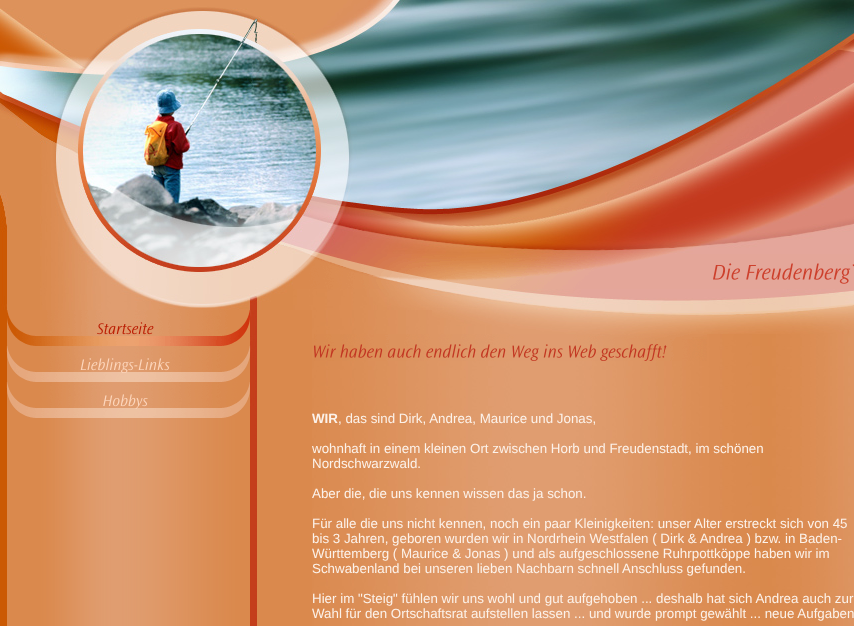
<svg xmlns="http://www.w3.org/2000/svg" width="854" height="626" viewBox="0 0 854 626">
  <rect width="100%" height="100%" fill="#fff"/>
  <image x="0" y="310" width="257" height="316" href="img/1.png"/>
  <image x="0" y="0" width="47" height="310" href="img/2.png"/>
  <image x="47" y="0" width="310" height="254" href="img/3.png"/>
  <image x="357" y="0" width="497" height="254" href="img/4.png"/>
  <image x="47" y="254" width="246" height="56" href="img/5.png"/>
  <image x="293" y="254" width="561" height="35" href="img/6.png"/>
  <image x="293" y="289" width="561" height="21" href="img/7.png"/>
  <image x="7" y="418" width="243" height="208" href="img/8.png"/>
  <image x="7" y="310" width="243" height="36" href="img/9.png"/>
  <image x="6" y="346" width="244" height="36" href="img/10.png"/>
  <image x="6" y="382" width="244" height="36" href="img/11.png"/>
  <path d="M257 310h55v316H257z" fill="#da894d"/>
  <image x="250" y="310" width="6" height="96" href="img/12.png"/>
  <image x="312" y="310" width="542" height="316" href="img/13.png"/>
  <image x="432" y="310" width="422" height="24" href="img/14.png"/>
  <image x="314" y="334" width="393" height="27" href="img/15.png"/>
  <text x="312" y="423" font-family="Liberation Sans" font-size="13.35" font-weight="bold" fill="#fcf2ea">WIR</text>
  <g font-family="Liberation Sans" font-size="13.35" fill="#fcf2ea">
    <text x="338" y="423">, das sind Dirk, Andrea, Maurice und Jonas,</text>
    <text x="312" y="453">wohnhaft in einem kleinen Ort zwischen Horb und Freudenstadt, im schönen</text>
    <text x="312" y="468">Nordschwarzwald.</text>
    <text x="312" y="498">Aber die, die uns kennen wissen das ja schon.</text>
    <text x="312" y="528">Für alle die uns nicht kennen, noch ein paar Kleinigkeiten: unser Alter erstreckt sich von 45</text>
    <text x="312" y="543">bis 3 Jahren, geboren wurden wir in Nordrhein Westfalen ( Dirk &amp; Andrea ) bzw. in Baden-</text>
    <text x="312" y="558">Württemberg ( Maurice &amp; Jonas ) und als aufgeschlossene Ruhrpottköppe haben wir im</text>
    <text x="312" y="573">Schwabenland bei unseren lieben Nachbarn schnell Anschluss gefunden.</text>
    <text x="312" y="603">Hier im "Steig" fühlen wir uns wohl und gut aufgehoben ... deshalb hat sich Andrea auch zur</text>
    <text x="312" y="618">Wahl für den Ortschaftsrat aufstellen lassen ... und wurde prompt gewählt ... neue Aufgaben</text>
  </g>
</svg>
